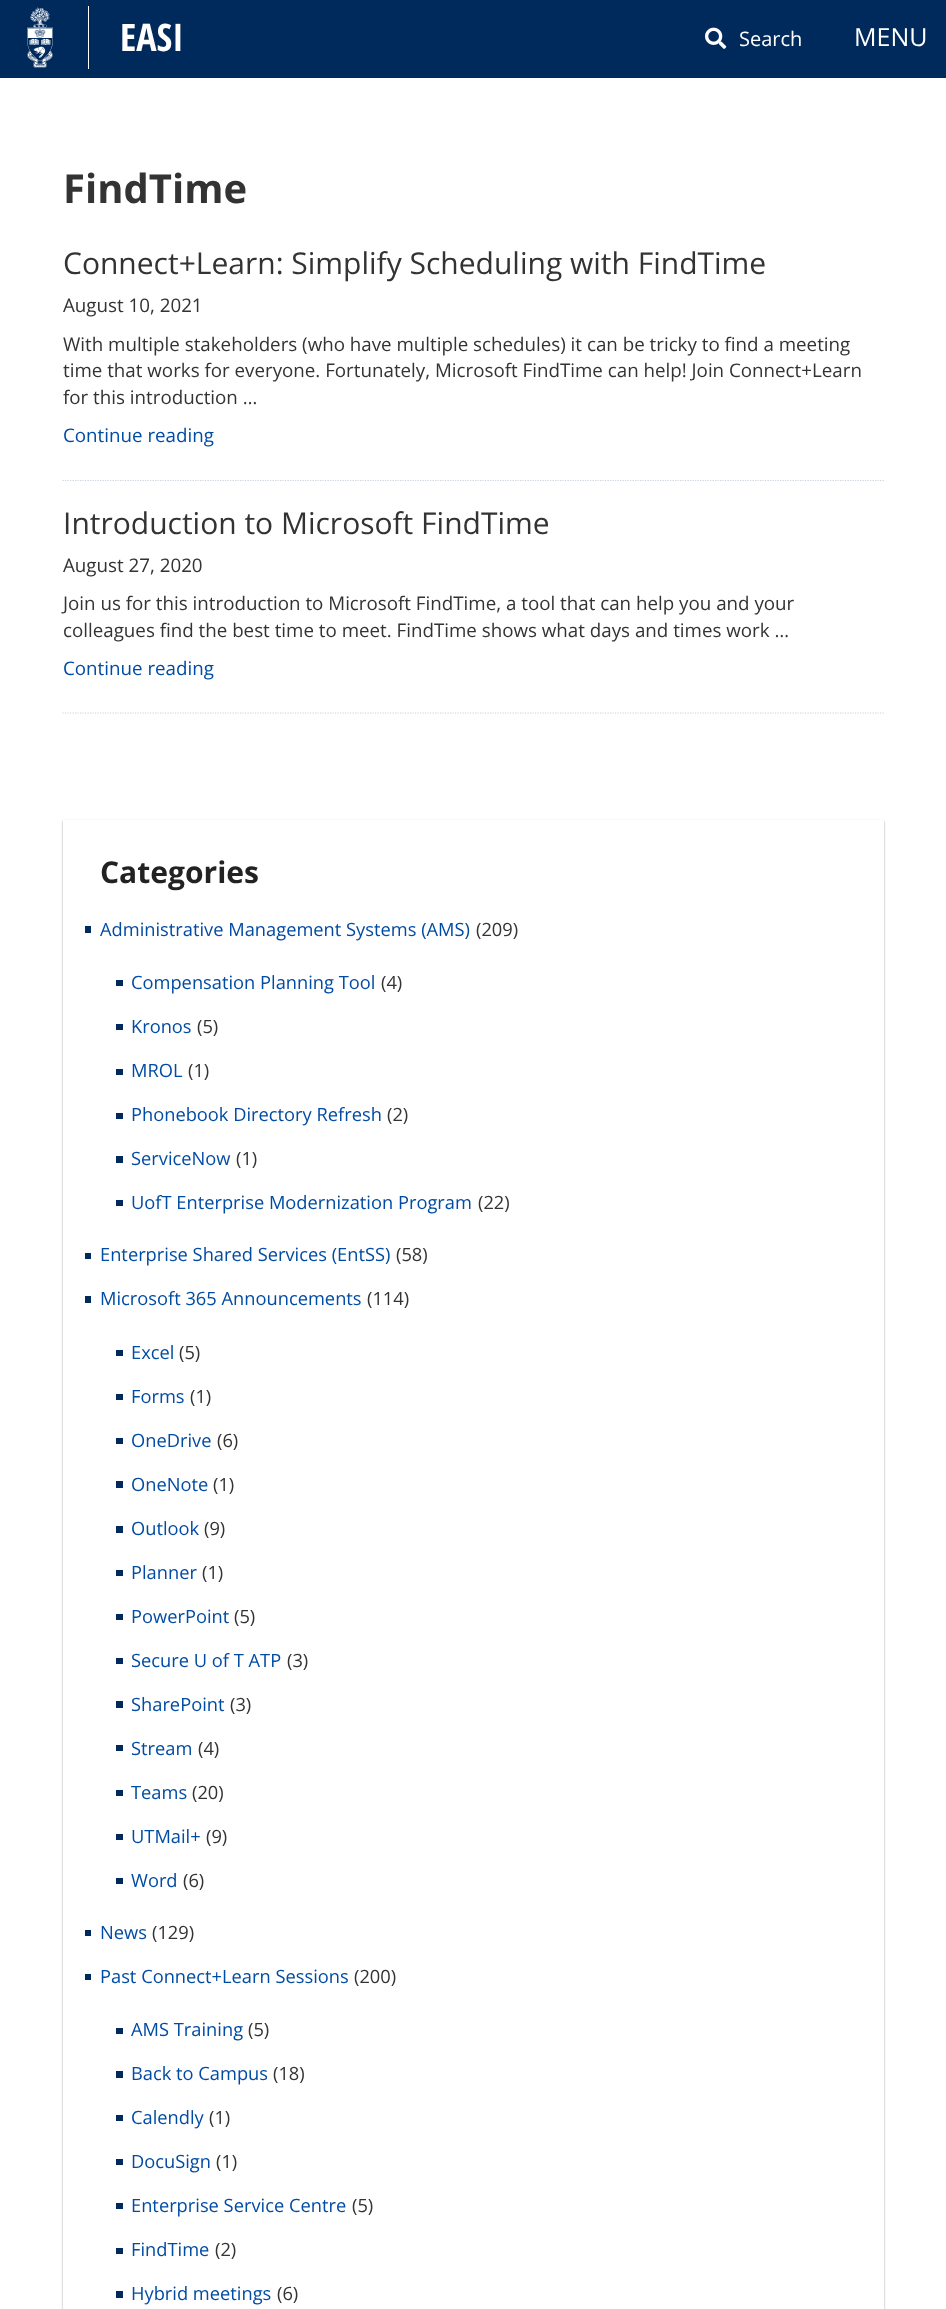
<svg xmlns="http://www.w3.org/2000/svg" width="946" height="2309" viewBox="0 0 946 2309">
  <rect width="100%" height="100%" fill="#fff"/>
  <path d="M0 0h946v78H0z" fill="#002a5c"/>
  <image x="27" y="7" width="26" height="61" href="img/1.png"/>
  <path d="M88 6h1v63H88z" fill="#fff"/>
  <image x="705" y="27" width="22" height="22" href="img/2.png"/>
  <path d="M62.5 480.5H884" fill="none" stroke="#ccd4de" stroke-width="1.2" stroke-dasharray="1.25 1.25"/>
  <path d="M62.5 713H884" fill="none" stroke="#ccd4de" stroke-width="1.2" stroke-dasharray="1.25 1.25"/>
  <path d="M63 821h821v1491H63z" fill="#00000059" filter="blur(1px)"/>
  <path d="M63 820h821v1489H63z" fill="#fff"/>
  <path d="M85 926h6v7H85z" fill="#002a5c"/>
  <path d="M116 980h7v6H116z" fill="#002a5c"/>
  <path d="M116 1024h7v6H116z" fill="#002a5c"/>
  <path d="M116 1069h7v6H116z" fill="#002a5c"/>
  <path d="M116 1113h7v6H116z" fill="#002a5c"/>
  <path d="M116 1156h7v7H116z" fill="#002a5c"/>
  <path d="M116 1200h7v6H116z" fill="#002a5c"/>
  <path d="M85 1253h6v6H85z" fill="#002a5c"/>
  <path d="M85 1296h6v7H85z" fill="#002a5c"/>
  <path d="M116 1350h7v6H116z" fill="#002a5c"/>
  <path d="M116 1394h7v6H116z" fill="#002a5c"/>
  <path d="M116 1438h7v6H116z" fill="#002a5c"/>
  <path d="M116 1481h7v7H116z" fill="#002a5c"/>
  <path d="M116 1526h7v7H116z" fill="#002a5c"/>
  <path d="M116 1570h7v6H116z" fill="#002a5c"/>
  <path d="M116 1614h7v6H116z" fill="#002a5c"/>
  <path d="M116 1658h7v6H116z" fill="#002a5c"/>
  <path d="M116 1701h7v7H116z" fill="#002a5c"/>
  <path d="M116 1745h7v6H116z" fill="#002a5c"/>
  <path d="M116 1790h7v6H116z" fill="#002a5c"/>
  <path d="M116 1834h7v6H116z" fill="#002a5c"/>
  <path d="M116 1878h7v6H116z" fill="#002a5c"/>
  <path d="M85 1930h6v6H85z" fill="#002a5c"/>
  <path d="M85 1974h6v6H85z" fill="#002a5c"/>
  <path d="M116 2028h7v6H116z" fill="#002a5c"/>
  <path d="M116 2071h7v7H116z" fill="#002a5c"/>
  <path d="M116 2115h7v6H116z" fill="#002a5c"/>
  <path d="M116 2159h7v6H116z" fill="#002a5c"/>
  <path d="M116 2203h7v6H116z" fill="#002a5c"/>
  <path d="M116 2248h7v6H116z" fill="#002a5c"/>
  <path d="M116 2291h7v7H116z" fill="#002a5c"/>
  <text x="120" y="51" font-family="Open Sans Condensed" font-size="38" font-weight="bold" fill="#fff">EASI</text>
  <text x="739" y="46" font-family="Open Sans" font-size="20" fill="#fff">Search</text>
  <text x="854" y="46" font-family="Open Sans" font-size="25" fill="#fff">MENU</text>
  <text x="63" y="203" font-family="Open Sans" font-size="40" font-weight="bold" fill="#333">FindTime</text>
  <text x="63" y="274" font-family="Open Sans" font-size="30" fill="#333">Connect+Learn: Simplify Scheduling with FindTime</text>
  <g font-family="Open Sans" font-size="18.75" fill="#333">
    <text x="63" y="312">August 10, 2021</text>
    <text x="63" y="351">With multiple stakeholders (who have multiple schedules) it can be tricky to find a meeting</text>
    <text x="63" y="377">time that works for everyone. Fortunately, Microsoft FindTime can help! Join Connect+Learn</text>
    <text x="63" y="404">for this introduction …</text>
  </g>
  <text x="63" y="442" font-family="Open Sans" font-size="18.75" fill="#004ba3">Continue reading</text>
  <text x="63" y="534" font-family="Open Sans" font-size="30" fill="#333">Introduction to Microsoft FindTime</text>
  <g font-family="Open Sans" font-size="18.75" fill="#333">
    <text x="63" y="572">August 27, 2020</text>
    <text x="63" y="610">Join us for this introduction to Microsoft FindTime, a tool that can help you and your</text>
    <text x="63" y="637">colleagues find the best time to meet. FindTime shows what days and times work …</text>
  </g>
  <text x="63" y="675" font-family="Open Sans" font-size="18.75" fill="#004ba3">Continue reading</text>
  <text x="100" y="883" font-family="Open Sans" font-size="30" font-weight="bold" fill="#222">Categories</text>
  <text x="100" y="936" font-family="Open Sans" font-size="18.3" fill="#004ba3">Administrative Management Systems (AMS)</text>
  <text x="476" y="936" font-family="Open Sans" font-size="18.3" fill="#333">(209)</text>
  <text x="131" y="989" font-family="Open Sans" font-size="18.3" fill="#004ba3">Compensation Planning Tool</text>
  <text x="381" y="989" font-family="Open Sans" font-size="18.3" fill="#333">(4)</text>
  <text x="131" y="1033" font-family="Open Sans" font-size="18.3" fill="#004ba3">Kronos</text>
  <text x="197" y="1033" font-family="Open Sans" font-size="18.3" fill="#333">(5)</text>
  <text x="131" y="1077" font-family="Open Sans" font-size="18.3" fill="#004ba3">MROL</text>
  <text x="188" y="1077" font-family="Open Sans" font-size="18.3" fill="#333">(1)</text>
  <text x="131" y="1121" font-family="Open Sans" font-size="18.3" fill="#004ba3">Phonebook Directory Refresh</text>
  <text x="387" y="1121" font-family="Open Sans" font-size="18.3" fill="#333">(2)</text>
  <text x="131" y="1165" font-family="Open Sans" font-size="18.3" fill="#004ba3">ServiceNow</text>
  <text x="236" y="1165" font-family="Open Sans" font-size="18.3" fill="#333">(1)</text>
  <text x="131" y="1209" font-family="Open Sans" font-size="18.3" fill="#004ba3">UofT Enterprise Modernization Program</text>
  <text x="478" y="1209" font-family="Open Sans" font-size="18.3" fill="#333">(22)</text>
  <text x="100" y="1261" font-family="Open Sans" font-size="18.3" fill="#004ba3">Enterprise Shared Services (EntSS)</text>
  <text x="396" y="1261" font-family="Open Sans" font-size="18.3" fill="#333">(58)</text>
  <text x="100" y="1305" font-family="Open Sans" font-size="18.3" fill="#004ba3">Microsoft 365 Announcements</text>
  <text x="367" y="1305" font-family="Open Sans" font-size="18.3" fill="#333">(114)</text>
  <text x="131" y="1359" font-family="Open Sans" font-size="18.3" fill="#004ba3">Excel</text>
  <text x="179" y="1359" font-family="Open Sans" font-size="18.3" fill="#333">(5)</text>
  <text x="131" y="1403" font-family="Open Sans" font-size="18.3" fill="#004ba3">Forms</text>
  <text x="190" y="1403" font-family="Open Sans" font-size="18.3" fill="#333">(1)</text>
  <text x="131" y="1447" font-family="Open Sans" font-size="18.3" fill="#004ba3">OneDrive</text>
  <text x="217" y="1447" font-family="Open Sans" font-size="18.3" fill="#333">(6)</text>
  <text x="131" y="1491" font-family="Open Sans" font-size="18.3" fill="#004ba3">OneNote</text>
  <text x="213" y="1491" font-family="Open Sans" font-size="18.3" fill="#333">(1)</text>
  <text x="131" y="1535" font-family="Open Sans" font-size="18.3" fill="#004ba3">Outlook</text>
  <text x="204" y="1535" font-family="Open Sans" font-size="18.3" fill="#333">(9)</text>
  <text x="131" y="1579" font-family="Open Sans" font-size="18.3" fill="#004ba3">Planner</text>
  <text x="202" y="1579" font-family="Open Sans" font-size="18.3" fill="#333">(1)</text>
  <text x="131" y="1623" font-family="Open Sans" font-size="18.3" fill="#004ba3">PowerPoint</text>
  <text x="234" y="1623" font-family="Open Sans" font-size="18.3" fill="#333">(5)</text>
  <text x="131" y="1667" font-family="Open Sans" font-size="18.3" fill="#004ba3">Secure U of T ATP</text>
  <text x="287" y="1667" font-family="Open Sans" font-size="18.3" fill="#333">(3)</text>
  <text x="131" y="1711" font-family="Open Sans" font-size="18.3" fill="#004ba3">SharePoint</text>
  <text x="230" y="1711" font-family="Open Sans" font-size="18.3" fill="#333">(3)</text>
  <text x="131" y="1755" font-family="Open Sans" font-size="18.3" fill="#004ba3">Stream</text>
  <text x="198" y="1755" font-family="Open Sans" font-size="18.3" fill="#333">(4)</text>
  <text x="131" y="1799" font-family="Open Sans" font-size="18.3" fill="#004ba3">Teams</text>
  <text x="192" y="1799" font-family="Open Sans" font-size="18.3" fill="#333">(20)</text>
  <text x="131" y="1843" font-family="Open Sans" font-size="18.3" fill="#004ba3">UTMail+</text>
  <text x="206" y="1843" font-family="Open Sans" font-size="18.3" fill="#333">(9)</text>
  <text x="131" y="1887" font-family="Open Sans" font-size="18.3" fill="#004ba3">Word</text>
  <text x="183" y="1887" font-family="Open Sans" font-size="18.3" fill="#333">(6)</text>
  <text x="100" y="1939" font-family="Open Sans" font-size="18.3" fill="#004ba3">News</text>
  <text x="152" y="1939" font-family="Open Sans" font-size="18.3" fill="#333">(129)</text>
  <text x="100" y="1983" font-family="Open Sans" font-size="18.3" fill="#004ba3">Past Connect+Learn Sessions</text>
  <text x="354" y="1983" font-family="Open Sans" font-size="18.3" fill="#333">(200)</text>
  <text x="131" y="2036" font-family="Open Sans" font-size="18.3" fill="#004ba3">AMS Training</text>
  <text x="248" y="2036" font-family="Open Sans" font-size="18.3" fill="#333">(5)</text>
  <text x="131" y="2080" font-family="Open Sans" font-size="18.3" fill="#004ba3">Back to Campus</text>
  <text x="273" y="2080" font-family="Open Sans" font-size="18.3" fill="#333">(18)</text>
  <text x="131" y="2124" font-family="Open Sans" font-size="18.3" fill="#004ba3">Calendly</text>
  <text x="209" y="2124" font-family="Open Sans" font-size="18.3" fill="#333">(1)</text>
  <text x="131" y="2168" font-family="Open Sans" font-size="18.3" fill="#004ba3">DocuSign</text>
  <text x="216" y="2168" font-family="Open Sans" font-size="18.3" fill="#333">(1)</text>
  <text x="131" y="2212" font-family="Open Sans" font-size="18.3" fill="#004ba3">Enterprise Service Centre</text>
  <text x="352" y="2212" font-family="Open Sans" font-size="18.3" fill="#333">(5)</text>
  <text x="131" y="2256" font-family="Open Sans" font-size="18.3" fill="#004ba3">FindTime</text>
  <text x="215" y="2256" font-family="Open Sans" font-size="18.3" fill="#333">(2)</text>
  <text x="131" y="2300" font-family="Open Sans" font-size="18.3" fill="#004ba3">Hybrid meetings</text>
  <text x="277" y="2300" font-family="Open Sans" font-size="18.3" fill="#333">(6)</text>
</svg>
